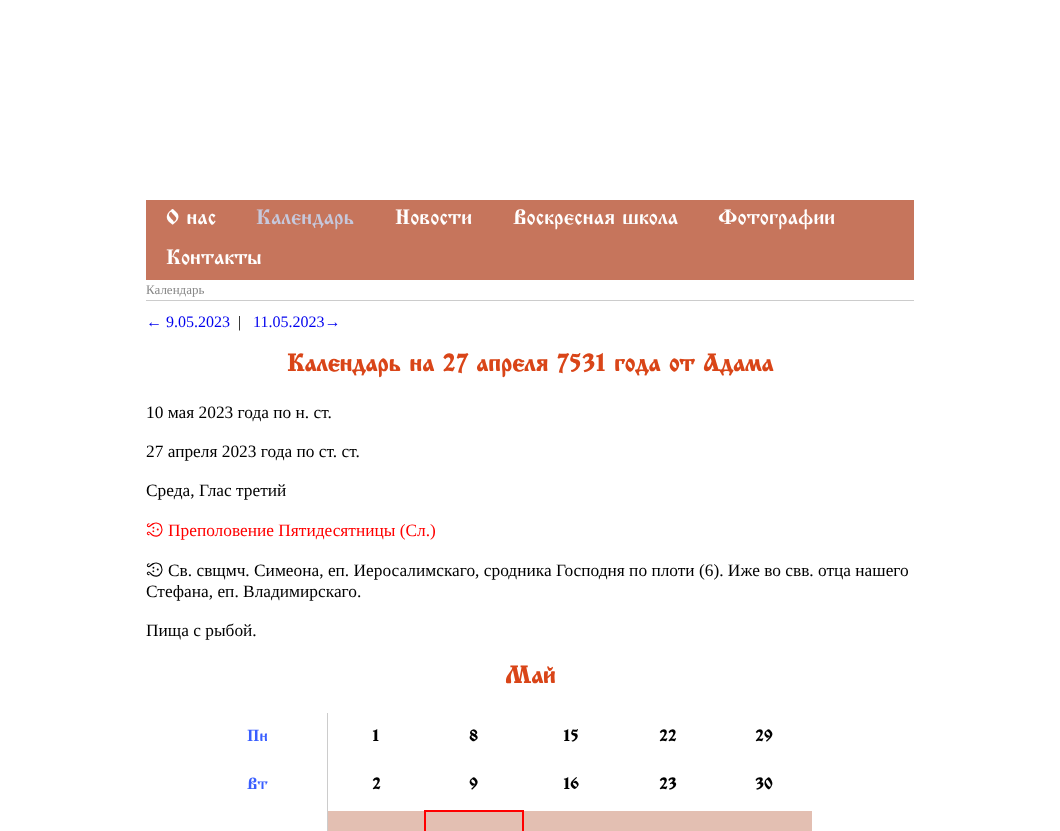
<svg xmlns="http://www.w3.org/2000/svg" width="1060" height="831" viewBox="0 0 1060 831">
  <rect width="100%" height="100%" fill="#fff"/>
  <path d="M146 200h768v80H146z" fill="#c6755c"/>
  <path d="M146 300h768v1H146z" fill="#ccc"/>
  <path d="M327 713h1v118H327z" fill="#ccc"/>
  <path d="M328 811h96v20H328z" fill="#e3bfb2"/>
  <path d="M426 812h96v19H426z" fill="#e3bfb2"/>
  <path d="M424 810h100v2H424z" fill="#f00"/>
  <path d="M522 810h2v21H522z" fill="#f00"/>
  <path d="M424 810h2v21H424z" fill="#f00"/>
  <path d="M524 811h288v20H524z" fill="#e3bfb2"/>
  <text x="166" y="224" font-family="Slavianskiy" font-size="20.75" fill="#fff">О нас</text>
  <text x="256" y="224" font-family="Slavianskiy" font-size="20.75" fill="#c6c8dc">Календарь</text>
  <g font-family="Slavianskiy" font-size="20.75" fill="#fff">
    <text x="395" y="224">Новости</text>
    <text x="513" y="224">Воскресная школа</text>
    <text x="718" y="224">Фотографии</text>
    <text x="166" y="264">Контакты</text>
  </g>
  <text x="146" y="294" font-family="Liberation Serif" font-size="13" fill="#888">Календарь</text>
  <text x="146" y="327" font-family="Liberation Serif" font-size="16" fill="#00e">← 9.05.2023</text>
  <text x="238" y="327" font-family="Liberation Serif" font-size="16" fill="#000">|</text>
  <text x="253" y="327" font-family="Liberation Serif" font-size="16" fill="#00e">11.05.2023→</text>
  <text x="287" y="371" font-family="Slavianskiy" font-size="24" font-weight="bold" fill="#d94518">Календарь на 27 апреля 7531 года от Адама</text>
  <g font-family="Liberation Serif" font-size="17.35" fill="#000">
    <text x="146" y="418">10 мая 2023 года по н. ст.</text>
    <text x="146" y="457">27 апреля 2023 года по ст. ст.</text>
    <text x="146" y="496">Среда, Глас третий</text>
  </g>
  <text x="146" y="536" font-family="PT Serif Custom" font-size="17.35" fill="#f00">Ӵ</text>
  <text x="168" y="536" font-family="Liberation Serif" font-size="17.35" fill="#f00">Преполовение Пятидесятницы (Сл.)</text>
  <text x="146" y="576" font-family="PT Serif Custom" font-size="17.35" fill="#000">Ӵ</text>
  <g font-family="Liberation Serif" font-size="17.35" fill="#000">
    <text x="168" y="576">Св. свщмч. Симеона, еп. Иеросалимскаго, сродника Господня по плоти (6). Иже во свв. отца нашего</text>
    <text x="146" y="597">Стефана, еп. Владимирскаго.</text>
    <text x="146" y="636">Пища с рыбой.</text>
  </g>
  <text x="505" y="683" font-family="Slavianskiy" font-size="24" font-weight="bold" fill="#d94518">Май</text>
  <text x="247" y="741" font-family="Slavianskiy" font-size="16" fill="#395eff">Пн</text>
  <g font-family="Slavianskiy" font-size="16" font-weight="bold" fill="#000">
    <text x="372" y="741">1</text>
    <text x="469" y="741">8</text>
    <text x="563" y="741">15</text>
    <text x="659" y="741">22</text>
    <text x="755" y="741">29</text>
  </g>
  <text x="247" y="789" font-family="Slavianskiy" font-size="16" fill="#395eff">Вт</text>
  <g font-family="Slavianskiy" font-size="16" font-weight="bold" fill="#000">
    <text x="372" y="789">2</text>
    <text x="469" y="789">9</text>
    <text x="563" y="789">16</text>
    <text x="659" y="789">23</text>
    <text x="755" y="789">30</text>
  </g>
</svg>
